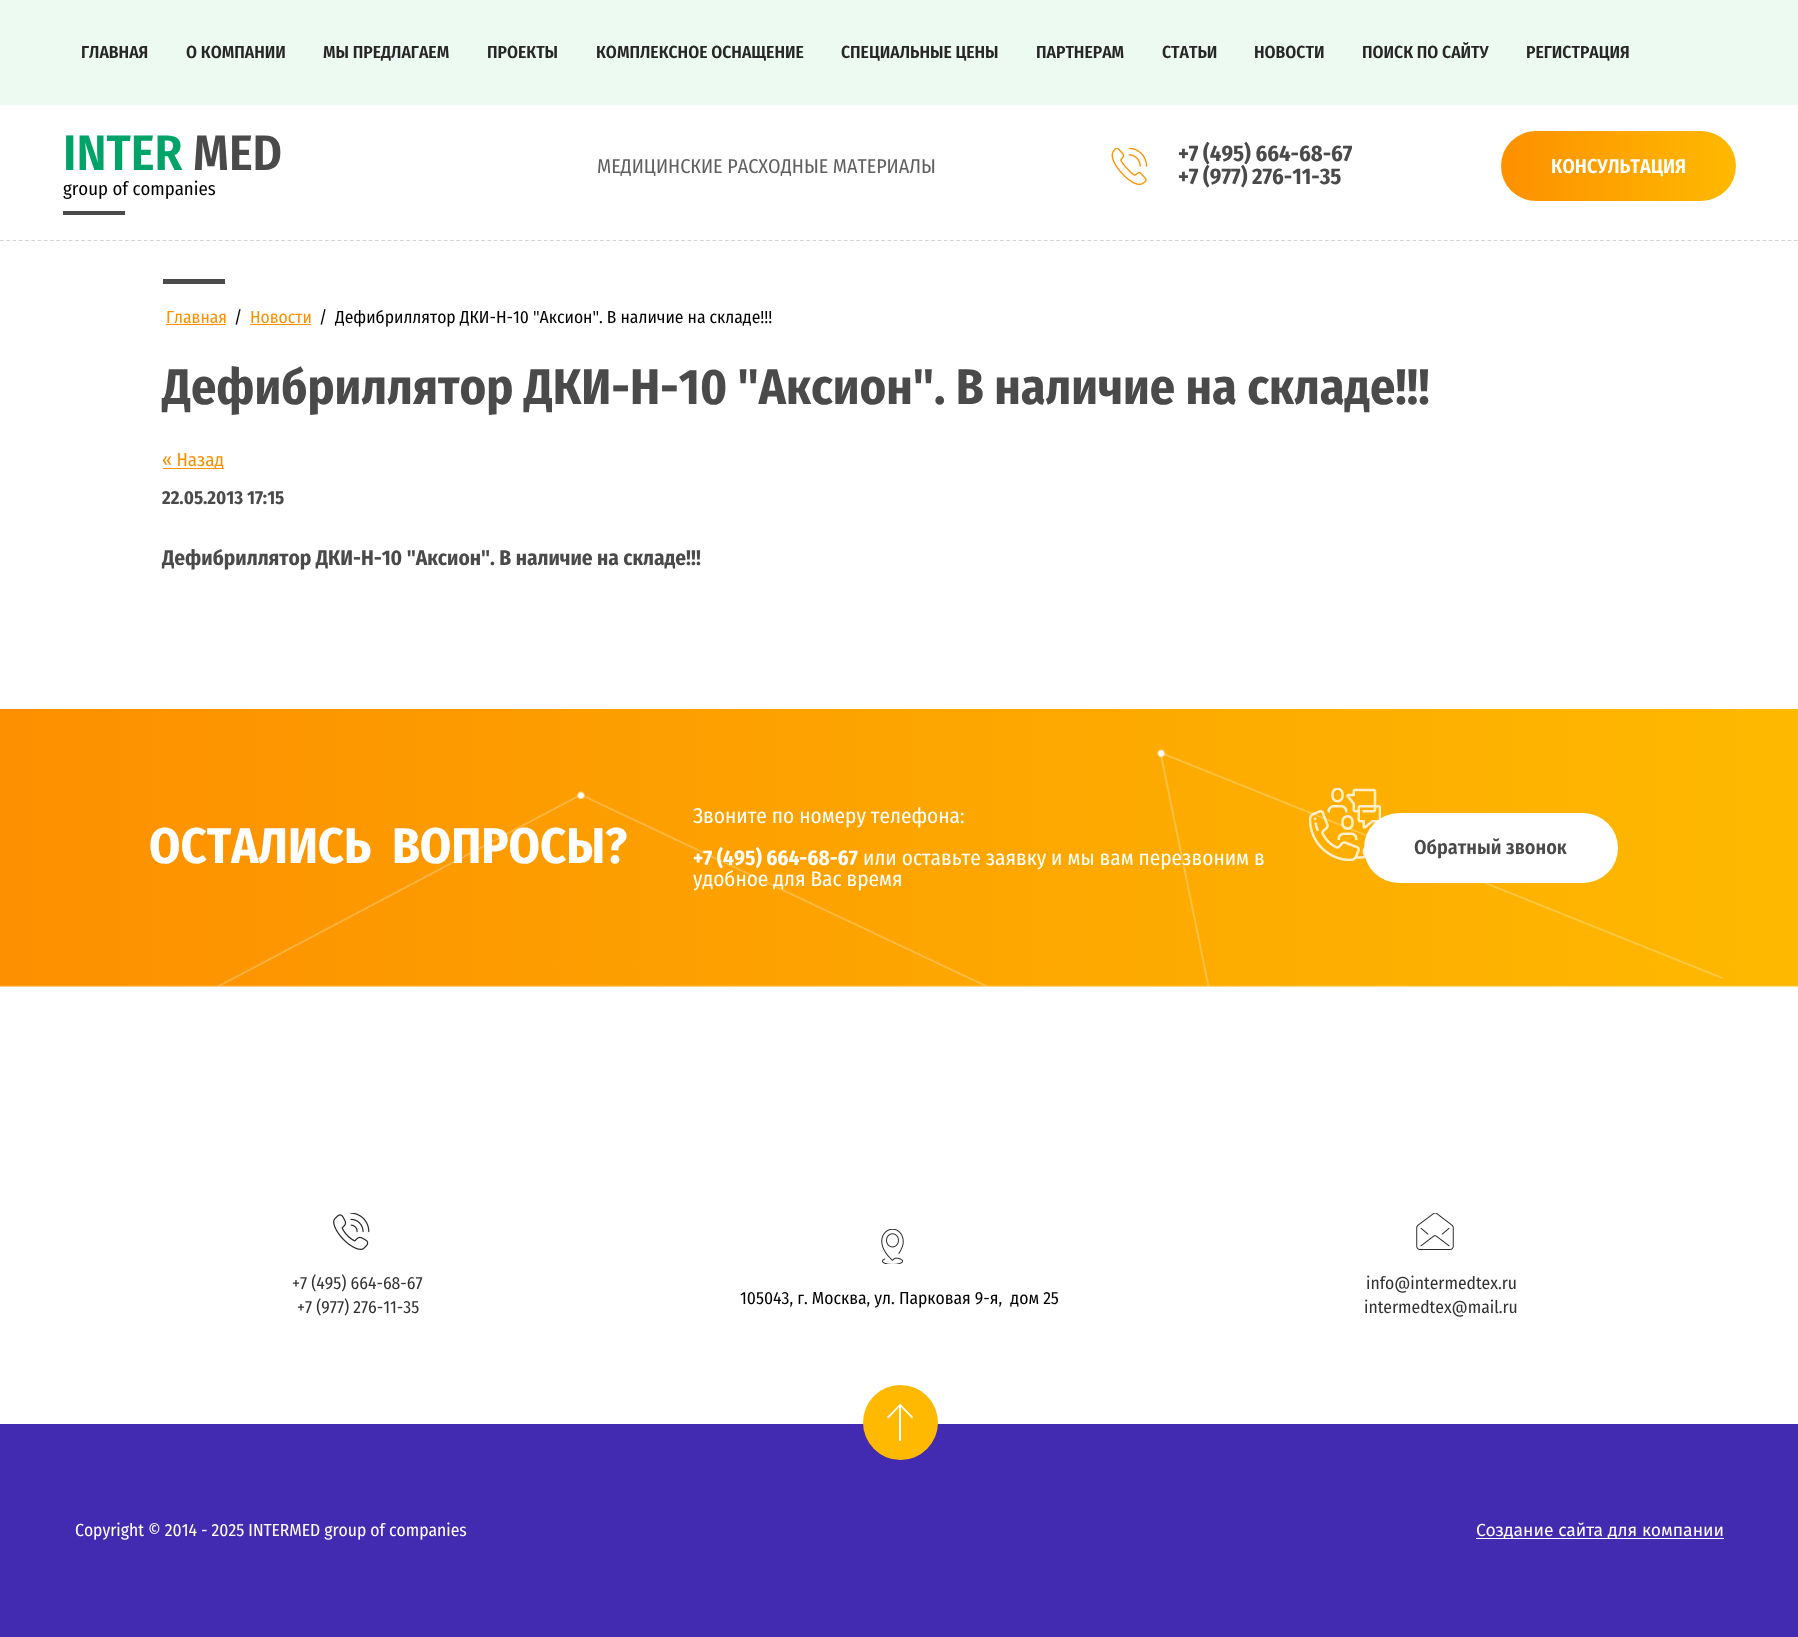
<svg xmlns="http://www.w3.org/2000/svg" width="1798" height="1637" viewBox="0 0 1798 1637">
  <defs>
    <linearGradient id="g1" gradientUnits="userSpaceOnUse" x1="1501" y1="166" x2="1736" y2="166"><stop offset="0" stop-color="#fd9000"/><stop offset="1" stop-color="#feb900"/></linearGradient>
    <clipPath id="clip1"><path d="M881 1404h38v37H881z"/></clipPath>
  </defs>
  <rect width="100%" height="100%" fill="#fff"/>
  <path d="M0 0h1798v105H0z" fill="#edfaf1"/>
  <path d="M63 211h62v4H63z" fill="#4a4a4a"/>
  <image x="1111" y="148" width="37" height="37" href="img/1.png"/>
  <rect x="1501" y="131" width="235" height="70" rx="35" fill="url(#g1)"/>
  <path d="M0 240.5H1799" fill="none" stroke="#d4d4d4" stroke-width="1.2" stroke-dasharray="3.75 2.5"/>
  <path d="M163 279h62v5H163z" fill="#4a4a4a"/>
  <path d="M166 324h60v1H166z" fill="#fd9000"/>
  <path d="M250 324h61v1H250z" fill="#fd9000"/>
  <path d="M163 468h61v1H163z" fill="#fd9000"/>
  <image x="0" y="709" width="1798" height="278" href="img/2.png"/>
  <image x="1309" y="788" width="72" height="73" href="img/3.png"/>
  <rect x="1364" y="813" width="254" height="70" rx="35" fill="#fff"/>
  <image x="333" y="1213" width="37" height="37" href="img/4.png"/>
  <image x="881" y="1229" width="23" height="35" href="img/5.png"/>
  <image x="1416" y="1213" width="38" height="37" href="img/6.png"/>
  <path d="M0 1424h1798v213H0z" fill="#422bb0"/>
  <circle cx="900.5" cy="1422.5" r="37.5" fill="#feb900"/>
  <g clip-path="url(#clip1)">
    <path d="M899.5 1404.5L887 1417L888.5 1418.5L899 1407V1441.5H901V1407L912 1418.5L913 1417L900 1403.5Z" fill="#fff" fill-rule="evenodd"/>
  </g>
  <path d="M1476 1538h248v1H1476z" fill="#fff"/>
  <g font-family="Fira Sans Condensed" font-size="17.5" font-weight="600" fill="#272727">
    <text x="81" y="58">ГЛАВНАЯ</text>
    <text x="186" y="58">О КОМПАНИИ</text>
    <text x="323" y="58">МЫ ПРЕДЛАГАЕМ</text>
    <text x="487" y="58">ПРОЕКТЫ</text>
    <text x="596" y="58">КОМПЛЕКСНОЕ ОСНАЩЕНИЕ</text>
    <text x="841" y="58">СПЕЦИАЛЬНЫЕ ЦЕНЫ</text>
    <text x="1036" y="58">ПАРТНЕРАМ</text>
    <text x="1162" y="58">СТАТЬИ</text>
    <text x="1254" y="58">НОВОСТИ</text>
    <text x="1362" y="58">ПОИСК ПО САЙТУ</text>
    <text x="1526" y="58">РЕГИСТРАЦИЯ</text>
  </g>
  <text x="63" y="170" font-family="Fira Sans Condensed" font-size="50" font-weight="600" fill="#00a468">INTER</text>
  <text x="193" y="170" font-family="Fira Sans Condensed" font-size="50" font-weight="600" fill="#4a4a4a">MED</text>
  <text x="63" y="195" font-family="Fira Sans Condensed" font-size="18.75" fill="#000">group of companies</text>
  <text x="597" y="173" font-family="Fira Sans Condensed" font-size="20" fill="#606060">МЕДИЦИНСКИЕ РАСХОДНЫЕ МАТЕРИАЛЫ</text>
  <g font-family="Fira Sans Condensed" font-size="22.5" font-weight="bold" fill="#4a4a4a">
    <text x="1178" y="161">+7 (495) 664-68-67</text>
    <text x="1178" y="184">+7 (977) 276-11-35</text>
  </g>
  <text x="1551" y="173" font-family="Fira Sans Condensed" font-size="20" font-weight="600" fill="#fff">КОНСУЛЬТАЦИЯ</text>
  <text x="166" y="323" font-family="Fira Sans Condensed" font-size="17.5" fill="#fd9000">Главная</text>
  <text x="234" y="323" font-family="Fira Sans Condensed" font-size="17.5" fill="#000">/</text>
  <text x="250" y="323" font-family="Fira Sans Condensed" font-size="17.5" fill="#fd9000">Новости</text>
  <g font-family="Fira Sans Condensed" font-size="17.5" fill="#000">
    <text x="319" y="323">/</text>
    <text x="335" y="323">Дефибриллятор ДКИ-Н-10 "Аксион". В наличие на складе!!!</text>
  </g>
  <text x="162" y="404" font-family="Fira Sans Condensed" font-size="50" font-weight="bold" fill="#4a4a4a">Дефибриллятор ДКИ-Н-10 "Аксион". В наличие на складе!!!</text>
  <text x="162" y="466" font-family="Fira Sans Condensed" font-size="18.75" fill="#fd9000">« Назад</text>
  <text x="162" y="504" font-family="Fira Sans Condensed" font-size="18.75" font-weight="bold" fill="#4a4a4a">22.05.2013 17:15</text>
  <text x="162" y="565" font-family="Fira Sans Condensed" font-size="21.25" font-weight="bold" fill="#4a4a4a">Дефибриллятор ДКИ-Н-10 "Аксион". В наличие на складе!!!</text>
  <text x="149" y="863" font-family="Fira Sans Condensed" font-size="50" font-weight="bold" fill="#fff" xml:space="preserve">ОСТАЛИСЬ  ВОПРОСЫ?</text>
  <text x="693" y="823" font-family="Fira Sans Condensed" font-size="21.25" fill="#fff">Звоните по номеру телефона:</text>
  <text x="693" y="865" font-family="Fira Sans Condensed" font-size="21.25" font-weight="bold" fill="#fff">+7 (495) 664-68-67</text>
  <g font-family="Fira Sans Condensed" font-size="21.25" fill="#fff">
    <text x="863" y="865">или оставьте заявку и мы вам перезвоним в</text>
    <text x="693" y="886">удобное для Вас время</text>
  </g>
  <text x="1414" y="854" font-family="Fira Sans Condensed" font-size="20" font-weight="600" fill="#4a4a4a">Обратный звонок</text>
  <g font-family="Fira Sans Condensed" font-size="17.5" fill="#323232">
    <text x="292" y="1289">+7 (495) 664-68-67</text>
    <text x="297" y="1313">+7 (977) 276-11-35</text>
  </g>
  <text x="740" y="1304" font-family="Fira Sans Condensed" font-size="17.5" fill="#000" xml:space="preserve">105043, г. Москва, ул. Парковая 9-я,  дом 25</text>
  <g font-family="Fira Sans Condensed" font-size="17.5" fill="#323232">
    <text x="1366" y="1289">info@intermedtex.ru</text>
    <text x="1364" y="1313">intermedtex@mail.ru</text>
  </g>
  <text x="75" y="1536" font-family="Fira Sans Condensed" font-size="17.5" fill="#fff">Copyright © 2014 - 2025 INTERMED group of companies</text>
  <text x="1476" y="1536" font-family="Fira Sans" font-size="17.5" fill="#fff">Создание сайта для компании</text>
</svg>
